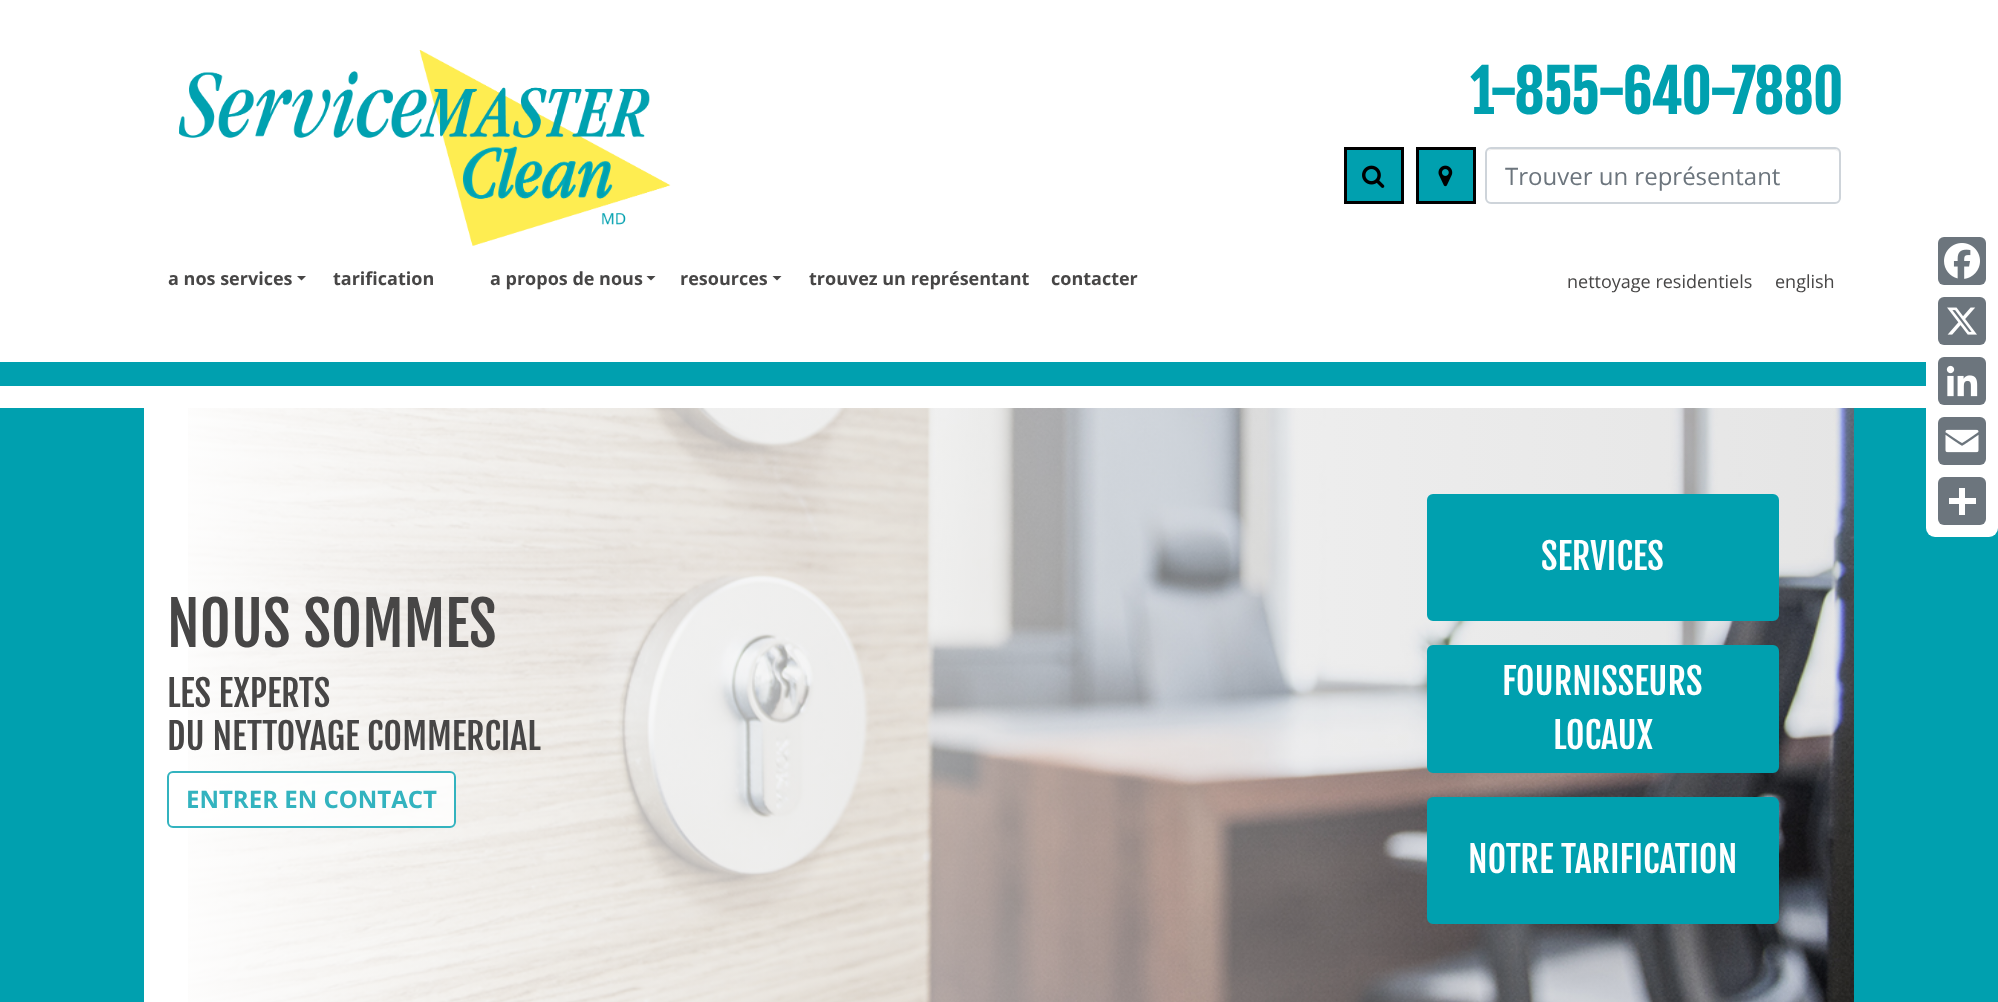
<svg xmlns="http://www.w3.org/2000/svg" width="1998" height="1002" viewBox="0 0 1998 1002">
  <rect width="100%" height="100%" fill="#fff"/>
  <image x="179" y="50" width="492" height="196" href="img/1.png"/>
  <path d="M1345.5 148.5h57v54H1345.5z" fill="#00a0af" stroke="#000" stroke-width="3"/>
  <image x="1362" y="165" width="23" height="23" href="img/2.png"/>
  <path d="M1417.5 148.5h57v54H1417.5z" fill="#00a0af" stroke="#000" stroke-width="3"/>
  <image x="1438" y="165" width="15" height="22" href="img/3.png"/>
  <path d="M1491 150H1834C1837 150 1839 152 1839 154C1839 151 1837 149 1834 149H1492C1490 149 1489 150 1488 151Z" fill="#ececec"/>
  <rect x="1486" y="148" width="354" height="55" rx="5" fill="none" stroke="#ced4da" stroke-width="2"/>
  <path d="M297 276H306L301.5 280.5Z" fill="#474646"/>
  <path d="M646.5 276H655.5L651 280.5Z" fill="#474646"/>
  <path d="M772.5 276H781.5L777 280.5Z" fill="#474646"/>
  <path d="M0 362h1926v24H0z" fill="#00a0af"/>
  <path d="M0 408h1998v594H0z" fill="#00a0af"/>
  <rect x="1926" y="225" width="72" height="312" rx="9" fill="#fff"/>
  <rect x="1938" y="237" width="48" height="48" rx="6" fill="#6c757d"/>
  <image x="1944" y="243" width="36" height="36" href="img/4.png"/>
  <rect x="1938" y="297" width="48" height="48" rx="6" fill="#6c757d"/>
  <image x="1947" y="307" width="30" height="28" href="img/5.png"/>
  <rect x="1938" y="357" width="48" height="48" rx="6" fill="#6c757d"/>
  <image x="1946" y="365" width="32" height="32" href="img/6.png"/>
  <rect x="1938" y="417" width="48" height="48" rx="6" fill="#6c757d"/>
  <image x="1945" y="429" width="34" height="24" href="img/7.png"/>
  <rect x="1938" y="477" width="48" height="48" rx="6" fill="#6c757d"/>
  <path d="M1959 488h6v27H1959z" fill="#fff"/>
  <path d="M1949 498h27v6H1949z" fill="#fff"/>
  <path d="M144 408h44v594H144z" fill="#fff"/>
  <image x="188" y="408" width="1666" height="594" href="img/8.png"/>
  <rect x="167" y="771" width="289" height="57" rx="6" fill="#ffffffcc"/>
  <rect x="168" y="772" width="287" height="55" rx="5" fill="none" stroke="#00a0afcc" stroke-width="2"/>
  <rect x="1429.5" y="496.5" width="347" height="122" rx="3.5" fill="#00a0af" stroke="#00a0af" stroke-width="5"/>
  <rect x="1429.5" y="647.5" width="347" height="123" rx="3.5" fill="#00a0af" stroke="#00a0af" stroke-width="5"/>
  <rect x="1429.5" y="799.5" width="347" height="122" rx="3.5" fill="#00a0af" stroke="#00a0af" stroke-width="5"/>
  <text x="1470" y="114" font-family="Fjalla One" font-size="57" font-weight="bold" fill="#00a0af">1-855-640-7880</text>
  <text x="1505" y="185" font-family="Open Sans" font-size="24" fill="#6c757d">Trouver un représentant</text>
  <g font-family="Open Sans" font-size="18" font-weight="bold" fill="#474646">
    <text x="168" y="285">a nos services</text>
    <text x="333" y="285">tarification</text>
    <text x="490" y="285">a propos de nous</text>
    <text x="680" y="285">resources</text>
    <text x="809" y="285">trouvez un représentant</text>
    <text x="1051" y="285">contacter</text>
  </g>
  <g font-family="Open Sans" font-size="18" fill="#474646">
    <text x="1567" y="288">nettoyage residentiels</text>
    <text x="1775" y="288">english</text>
  </g>
  <text x="167" y="647" font-family="Fjalla One" font-size="60" fill="#474646">NOUS SOMMES</text>
  <g font-family="Fjalla One" font-size="36" fill="#474646">
    <text x="167" y="707">LES EXPERTS</text>
    <text x="167" y="750">DU NETTOYAGE COMMERCIAL</text>
  </g>
  <text x="186" y="808" font-family="Open Sans" font-size="24" font-weight="bold" fill="#33b3bf">ENTRER EN CONTACT</text>
  <g font-family="Fjalla One" font-size="36" fill="#fff">
    <text x="1541" y="570">SERVICES</text>
    <text x="1502" y="695">FOURNISSEURS</text>
    <text x="1553" y="749">LOCAUX</text>
    <text x="1468" y="873">NOTRE TARIFICATION</text>
  </g>
</svg>
